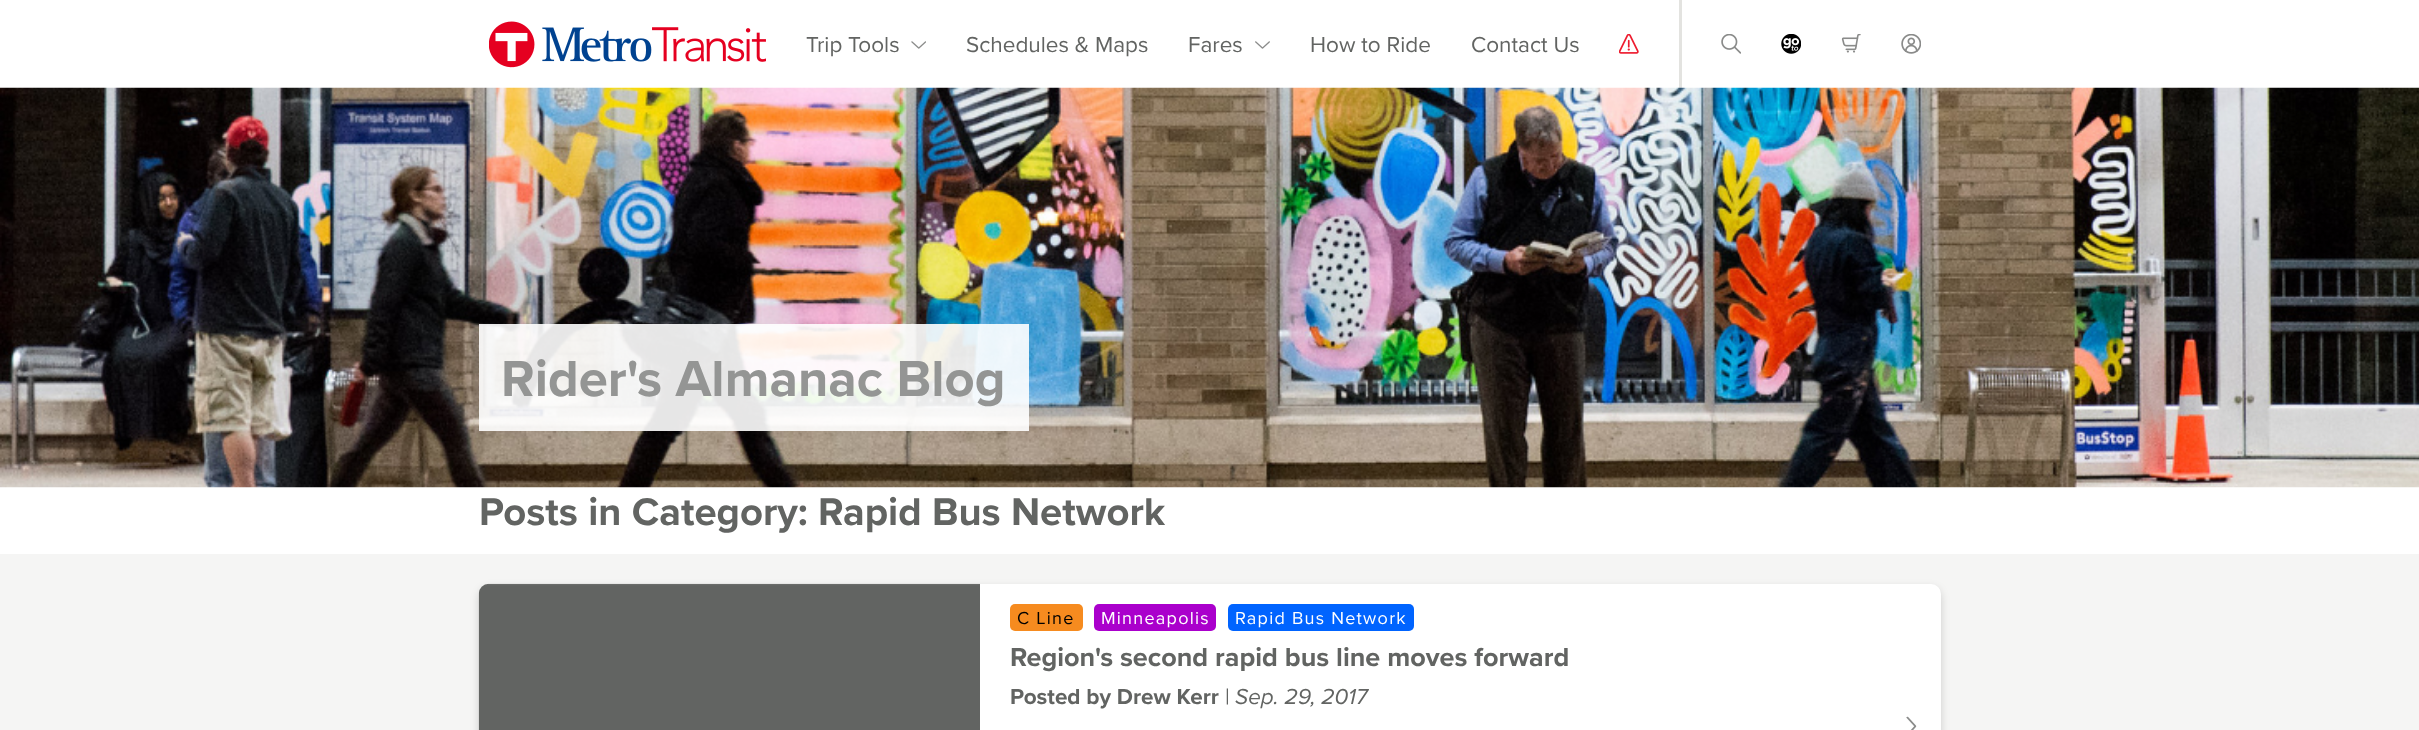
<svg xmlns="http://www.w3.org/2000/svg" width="2419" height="730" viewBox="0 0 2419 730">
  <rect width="100%" height="100%" fill="#fff"/>
  <image x="489" y="21" width="277" height="47" href="img/1.png"/>
  <image x="911" y="41" width="15" height="8" href="img/2.png"/>
  <image x="1255" y="41" width="15" height="8" href="img/3.png"/>
  <image x="1619" y="34" width="20" height="20" href="img/4.png"/>
  <path d="M1679 0h3v88H1679z" fill="#e3e3e0"/>
  <image x="1721" y="34" width="20" height="20" href="img/5.png"/>
  <image x="1781" y="34" width="20" height="20" href="img/6.png"/>
  <image x="1841" y="34" width="20" height="19" href="img/7.png"/>
  <image x="1901" y="34" width="20" height="20" href="img/8.png"/>
  <image x="0" y="87" width="2419" height="401" href="img/9.png"/>
  <path d="M479 324h550v107H479z" fill="#ffffffe6"/>
  <path d="M0 554h2419v176H0z" fill="#f5f5f4"/>
  <rect x="479" y="588" width="1462" height="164" rx="10" fill="#00000029" filter="blur(4px)"/>
  <rect x="479" y="584" width="1462" height="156" rx="10" fill="#fff"/>
  <image x="478" y="583" width="502" height="147" href="img/10.png"/>
  <rect x="1010" y="604" width="73" height="27" rx="5" fill="#f68b1f"/>
  <rect x="1094" y="604" width="122" height="27" rx="5" fill="#a0c"/>
  <rect x="1228" y="604" width="186" height="27" rx="5" fill="#0064ff"/>
  <image x="1906" y="716" width="11" height="14" href="img/11.png"/>
  <g font-family="Proxima Nova" font-size="22.5" fill="#626462">
    <text x="806" y="52">Trip Tools</text>
    <text x="966" y="52">Schedules &amp; Maps</text>
    <text x="1188" y="52">Fares</text>
    <text x="1310" y="52">How to Ride</text>
    <text x="1471" y="52">Contact Us</text>
  </g>
  <text x="501" y="396" font-family="Proxima Nova" font-size="52.5" font-weight="bold" fill="#949594">Rider's Almanac Blog</text>
  <text x="479" y="525" font-family="Proxima Nova" font-size="40" font-weight="bold" fill="#626462">Posts in Category: Rapid Bus Network</text>
  <text x="1017" y="624" font-family="Proxima Nova" font-size="18" letter-spacing="1.25" fill="#000">C Line</text>
  <g font-family="Proxima Nova" font-size="18" letter-spacing="1.25" fill="#fff">
    <text x="1101" y="624">Minneapolis</text>
    <text x="1235" y="624">Rapid Bus Network</text>
  </g>
  <text x="1010" y="666" font-family="Proxima Nova" font-size="27" font-weight="bold" fill="#626462">Region's second rapid bus line moves forward</text>
  <text x="1010" y="704" font-family="Proxima Nova" font-size="22.5" font-weight="bold" fill="#626462">Posted by Drew Kerr</text>
  <text x="1225" y="704" font-family="Proxima Nova" font-size="22.5" fill="#626462">|</text>
  <text x="1235" y="704" font-family="Proxima Nova" font-size="22.5" font-style="italic" fill="#626462">Sep. 29, 2017</text>
</svg>
